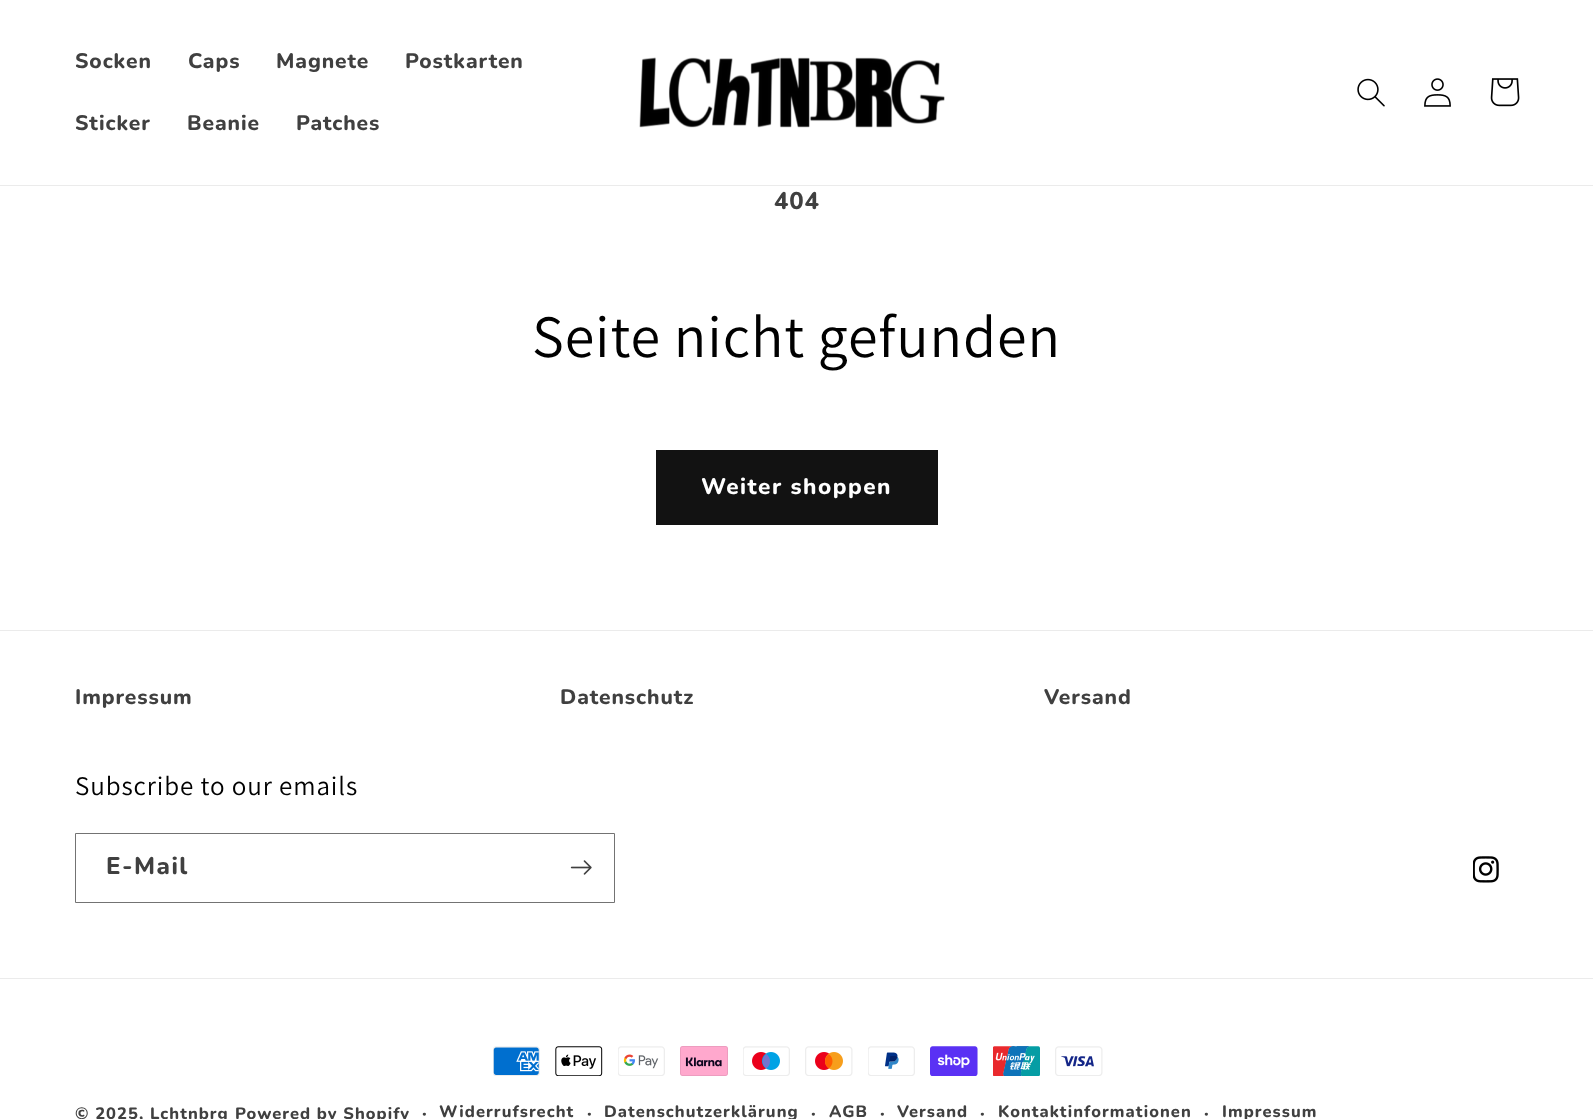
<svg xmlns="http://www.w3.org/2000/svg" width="1593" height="1119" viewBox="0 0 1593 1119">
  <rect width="100%" height="100%" fill="#fff"/>
  <path d="M0 185h1593v1H0z" fill="#ebebeb"/>
  <image x="639" y="57" width="306" height="71" href="img/1.png"/>
  <image x="1357" y="78" width="28" height="29" href="img/2.png"/>
  <image x="1424" y="78" width="27" height="29" href="img/3.png"/>
  <image x="1490" y="78" width="30" height="29" href="img/4.png"/>
  <path d="M656 450h282v75H656z" fill="#121212"/>
  <path d="M0 630h1593v1H0z" fill="#ebebeb"/>
  <path d="M75.5 833.5h539v69H75.5z" fill="none" stroke="#737373"/>
  <image x="570" y="860" width="22" height="15" href="img/5.png"/>
  <image x="1473" y="856" width="26" height="27" href="img/6.png"/>
  <path d="M0 978h1593v1H0z" fill="#ebebeb"/>
  <image x="493" y="1046" width="47" height="30" href="img/7.png"/>
  <image x="555" y="1046" width="48" height="30" href="img/8.png"/>
  <image x="618" y="1046" width="47" height="30" href="img/9.png"/>
  <image x="680" y="1046" width="48" height="30" href="img/10.png"/>
  <image x="743" y="1046" width="47" height="30" href="img/11.png"/>
  <image x="805" y="1046" width="48" height="30" href="img/12.png"/>
  <image x="868" y="1046" width="47" height="30" href="img/13.png"/>
  <image x="930" y="1046" width="48" height="30" href="img/14.png"/>
  <image x="993" y="1046" width="47" height="30" href="img/15.png"/>
  <image x="1055" y="1046" width="48" height="30" href="img/16.png"/>
  <g font-family="Nunito" font-size="21" font-weight="800" letter-spacing="0.9" fill="#404040">
    <text x="75" y="68">Socken</text>
    <text x="188" y="68">Caps</text>
    <text x="276" y="68">Magnete</text>
    <text x="405" y="68">Postkarten</text>
    <text x="75" y="130">Sticker</text>
    <text x="187" y="130">Beanie</text>
    <text x="296" y="130">Patches</text>
  </g>
  <text x="774" y="209" font-family="Nunito" font-size="24" font-weight="800" letter-spacing="0.9" fill="#404040">404</text>
  <text x="532" y="357" font-family="Assistant" font-size="60" letter-spacing="0.9" fill="#000">Seite nicht gefunden</text>
  <text x="701" y="494" font-family="Nunito" font-size="22.5" font-weight="800" letter-spacing="1.5" fill="#fff">Weiter shoppen</text>
  <g font-family="Nunito" font-size="21" font-weight="800" letter-spacing="0.9" fill="#404040">
    <text x="75" y="704">Impressum</text>
    <text x="560" y="704">Datenschutz</text>
    <text x="1044" y="704">Versand</text>
  </g>
  <text x="75" y="795" font-family="Assistant" font-size="27" letter-spacing="0.9" fill="#000">Subscribe to our emails</text>
  <text x="106" y="874" font-family="Nunito" font-size="24" font-weight="800" letter-spacing="1.5" fill="#404040">E-Mail</text>
  <g font-family="Nunito" font-size="16.5" font-weight="800" letter-spacing="1.05" fill="#404040">
    <text x="75" y="1119">© 2025, Lchtnbrg</text>
    <text x="235" y="1119">Powered by Shopify</text>
  </g>
  <text x="422" y="1119" font-family="Nunito" font-size="18" font-weight="800" letter-spacing="1.05" fill="#404040">·</text>
  <text x="439" y="1117" font-family="Nunito" font-size="16.5" font-weight="800" letter-spacing="1.05" fill="#404040">Widerrufsrecht</text>
  <text x="587" y="1119" font-family="Nunito" font-size="18" font-weight="800" letter-spacing="1.05" fill="#404040">·</text>
  <text x="604" y="1117" font-family="Nunito" font-size="16.5" font-weight="800" letter-spacing="1.05" fill="#404040">Datenschutzerklärung</text>
  <text x="811" y="1119" font-family="Nunito" font-size="18" font-weight="800" letter-spacing="1.05" fill="#404040">·</text>
  <text x="829" y="1117" font-family="Nunito" font-size="16.5" font-weight="800" letter-spacing="1.05" fill="#404040">AGB</text>
  <text x="880" y="1119" font-family="Nunito" font-size="18" font-weight="800" letter-spacing="1.05" fill="#404040">·</text>
  <text x="897" y="1117" font-family="Nunito" font-size="16.5" font-weight="800" letter-spacing="1.05" fill="#404040">Versand</text>
  <text x="980" y="1119" font-family="Nunito" font-size="18" font-weight="800" letter-spacing="1.05" fill="#404040">·</text>
  <text x="998" y="1117" font-family="Nunito" font-size="16.5" font-weight="800" letter-spacing="1.05" fill="#404040">Kontaktinformationen</text>
  <text x="1204" y="1119" font-family="Nunito" font-size="18" font-weight="800" letter-spacing="1.05" fill="#404040">·</text>
  <text x="1222" y="1117" font-family="Nunito" font-size="16.5" font-weight="800" letter-spacing="1.05" fill="#404040">Impressum</text>
</svg>
